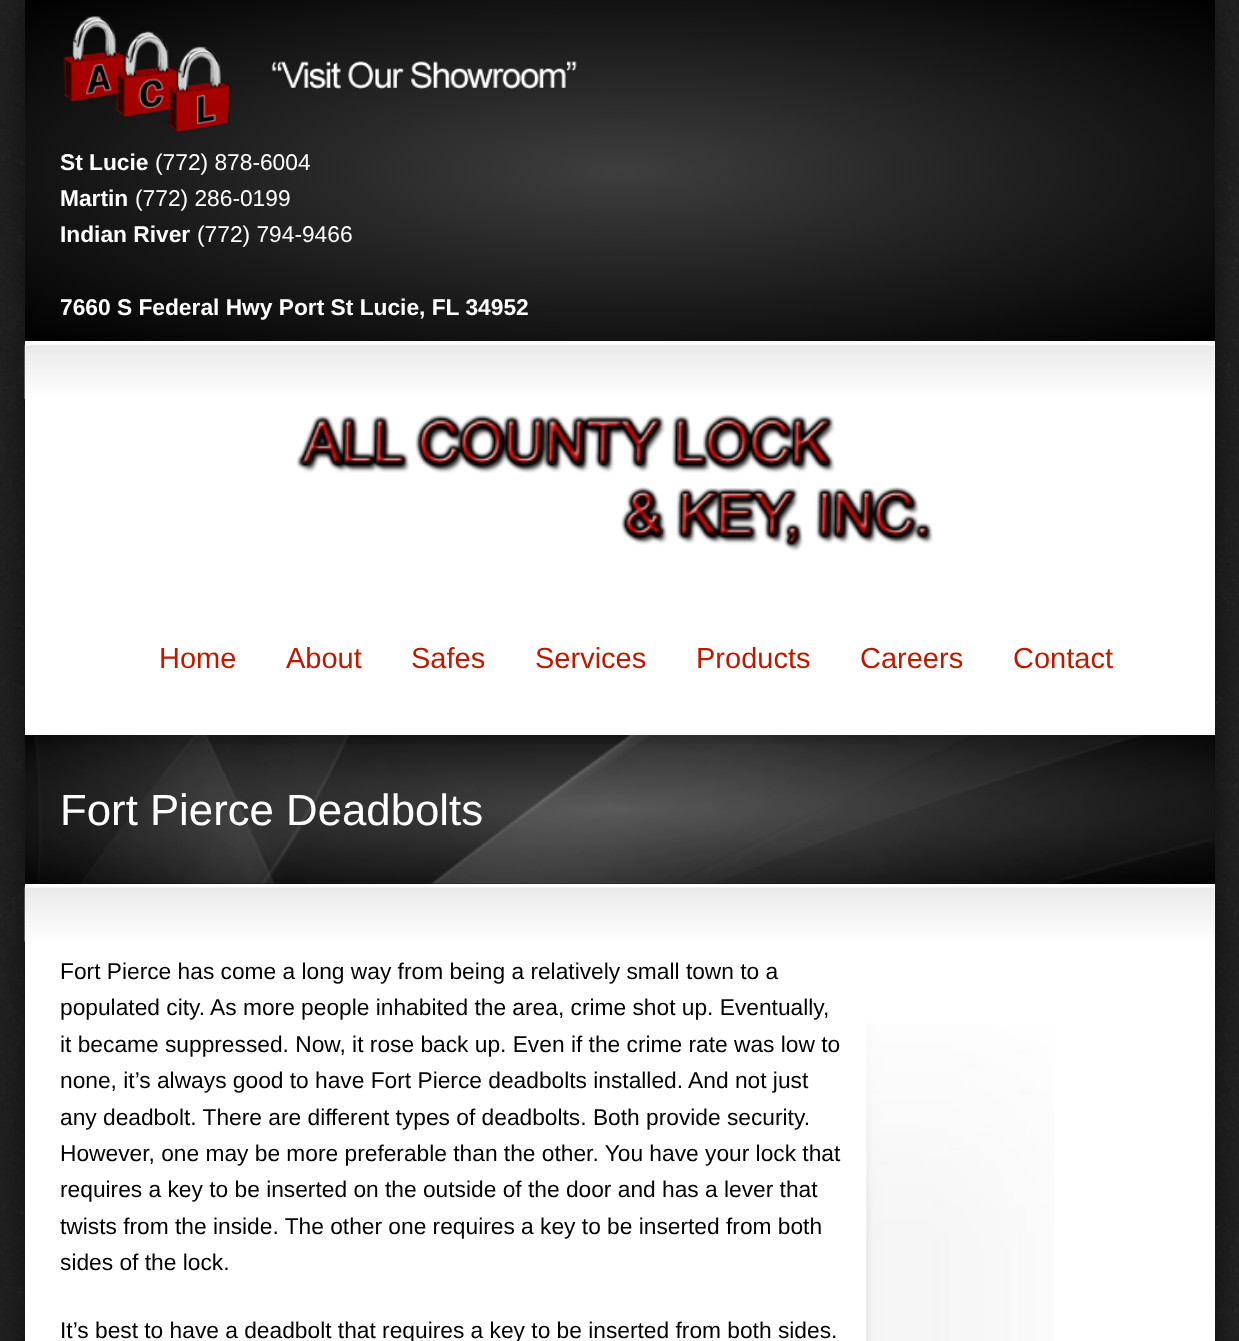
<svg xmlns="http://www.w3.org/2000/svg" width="1239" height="1341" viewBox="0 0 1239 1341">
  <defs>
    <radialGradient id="g1" gradientUnits="userSpaceOnUse" cx="0" cy="0" r="1" gradientTransform="matrix(841 0 0 241 620 171)"><stop offset="0" stop-color="#3e3e3e"/><stop offset="1" stop-color="#000"/></radialGradient>
    <radialGradient id="g2" gradientUnits="userSpaceOnUse" cx="0" cy="0" r="1" gradientTransform="matrix(841 0 0 105 620 809)"><stop offset="0" stop-color="#3e3e3e"/><stop offset="1" stop-color="#000"/></radialGradient>
  </defs>
  <rect width="100%" height="100%" fill="#fff"/>
  <image x="0" y="0" width="1239" height="1341" href="img/1.png"/>
  <path d="M25 0h1190v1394H25z" fill="#00000080" filter="blur(17.5px)"/>
  <path d="M25 0h1190v341H25z" fill="url(#g1)"/>
  <image x="63" y="16" width="514" height="117" href="img/2.png"/>
  <path d="M25 341h1190v394H25z" fill="#fff"/>
  <image x="24" y="344" width="1191" height="55" href="img/3.png"/>
  <image x="296" y="414" width="637" height="138" href="img/4.png"/>
  <path d="M25 735h1190v149H25z" fill="url(#g2)"/>
  <image x="24" y="735" width="875" height="9" href="img/5.png"/>
  <image x="25" y="735" width="1190" height="149" href="img/6.png"/>
  <path d="M25 884h1190v457H25z" fill="#fff"/>
  <image x="24" y="887" width="1191" height="55" href="img/7.png"/>
  <image x="866" y="1023" width="189" height="318" href="img/8.png"/>
  <text x="60" y="170" font-family="Liberation Sans" font-size="22.75" font-weight="bold" fill="#fff">St Lucie</text>
  <text x="155" y="170" font-family="Liberation Sans" font-size="22.75" fill="#fff">(772) 878-6004</text>
  <text x="60" y="206" font-family="Liberation Sans" font-size="22.75" font-weight="bold" fill="#fff">Martin</text>
  <text x="135" y="206" font-family="Liberation Sans" font-size="22.75" fill="#fff">(772) 286-0199</text>
  <text x="60" y="242" font-family="Liberation Sans" font-size="22.75" font-weight="bold" fill="#fff">Indian River</text>
  <text x="197" y="242" font-family="Liberation Sans" font-size="22.75" fill="#fff">(772) 794-9466</text>
  <text x="60" y="315" font-family="Liberation Sans" font-size="22.75" font-weight="bold" fill="#fff">7660 S Federal Hwy Port St Lucie, FL 34952</text>
  <g font-family="Liberation Sans" font-size="29" fill="#bd1900">
    <text x="159" y="668">Home</text>
    <text x="286" y="668">About</text>
    <text x="411" y="668">Safes</text>
    <text x="535" y="668">Services</text>
    <text x="696" y="668">Products</text>
    <text x="860" y="668">Careers</text>
    <text x="1013" y="668">Contact</text>
  </g>
  <text x="60" y="825" font-family="Liberation Sans" font-size="43.75" fill="#fff">Fort Pierce Deadbolts</text>
  <g font-family="Liberation Sans" font-size="22.75" fill="#000">
    <text x="60" y="979">Fort Pierce has come a long way from being a relatively small town to a</text>
    <text x="60" y="1015">populated city. As more people inhabited the area, crime shot up. Eventually,</text>
    <text x="60" y="1052">it became suppressed. Now, it rose back up. Even if the crime rate was low to</text>
    <text x="60" y="1088">none, it’s always good to have Fort Pierce deadbolts installed. And not just</text>
    <text x="60" y="1125">any deadbolt. There are different types of deadbolts. Both provide security.</text>
    <text x="60" y="1161">However, one may be more preferable than the other. You have your lock that</text>
    <text x="60" y="1197">requires a key to be inserted on the outside of the door and has a lever that</text>
    <text x="60" y="1234">twists from the inside. The other one requires a key to be inserted from both</text>
    <text x="60" y="1270">sides of the lock.</text>
    <text x="60" y="1338">It’s best to have a deadbolt that requires a key to be inserted from both sides.</text>
  </g>
</svg>
